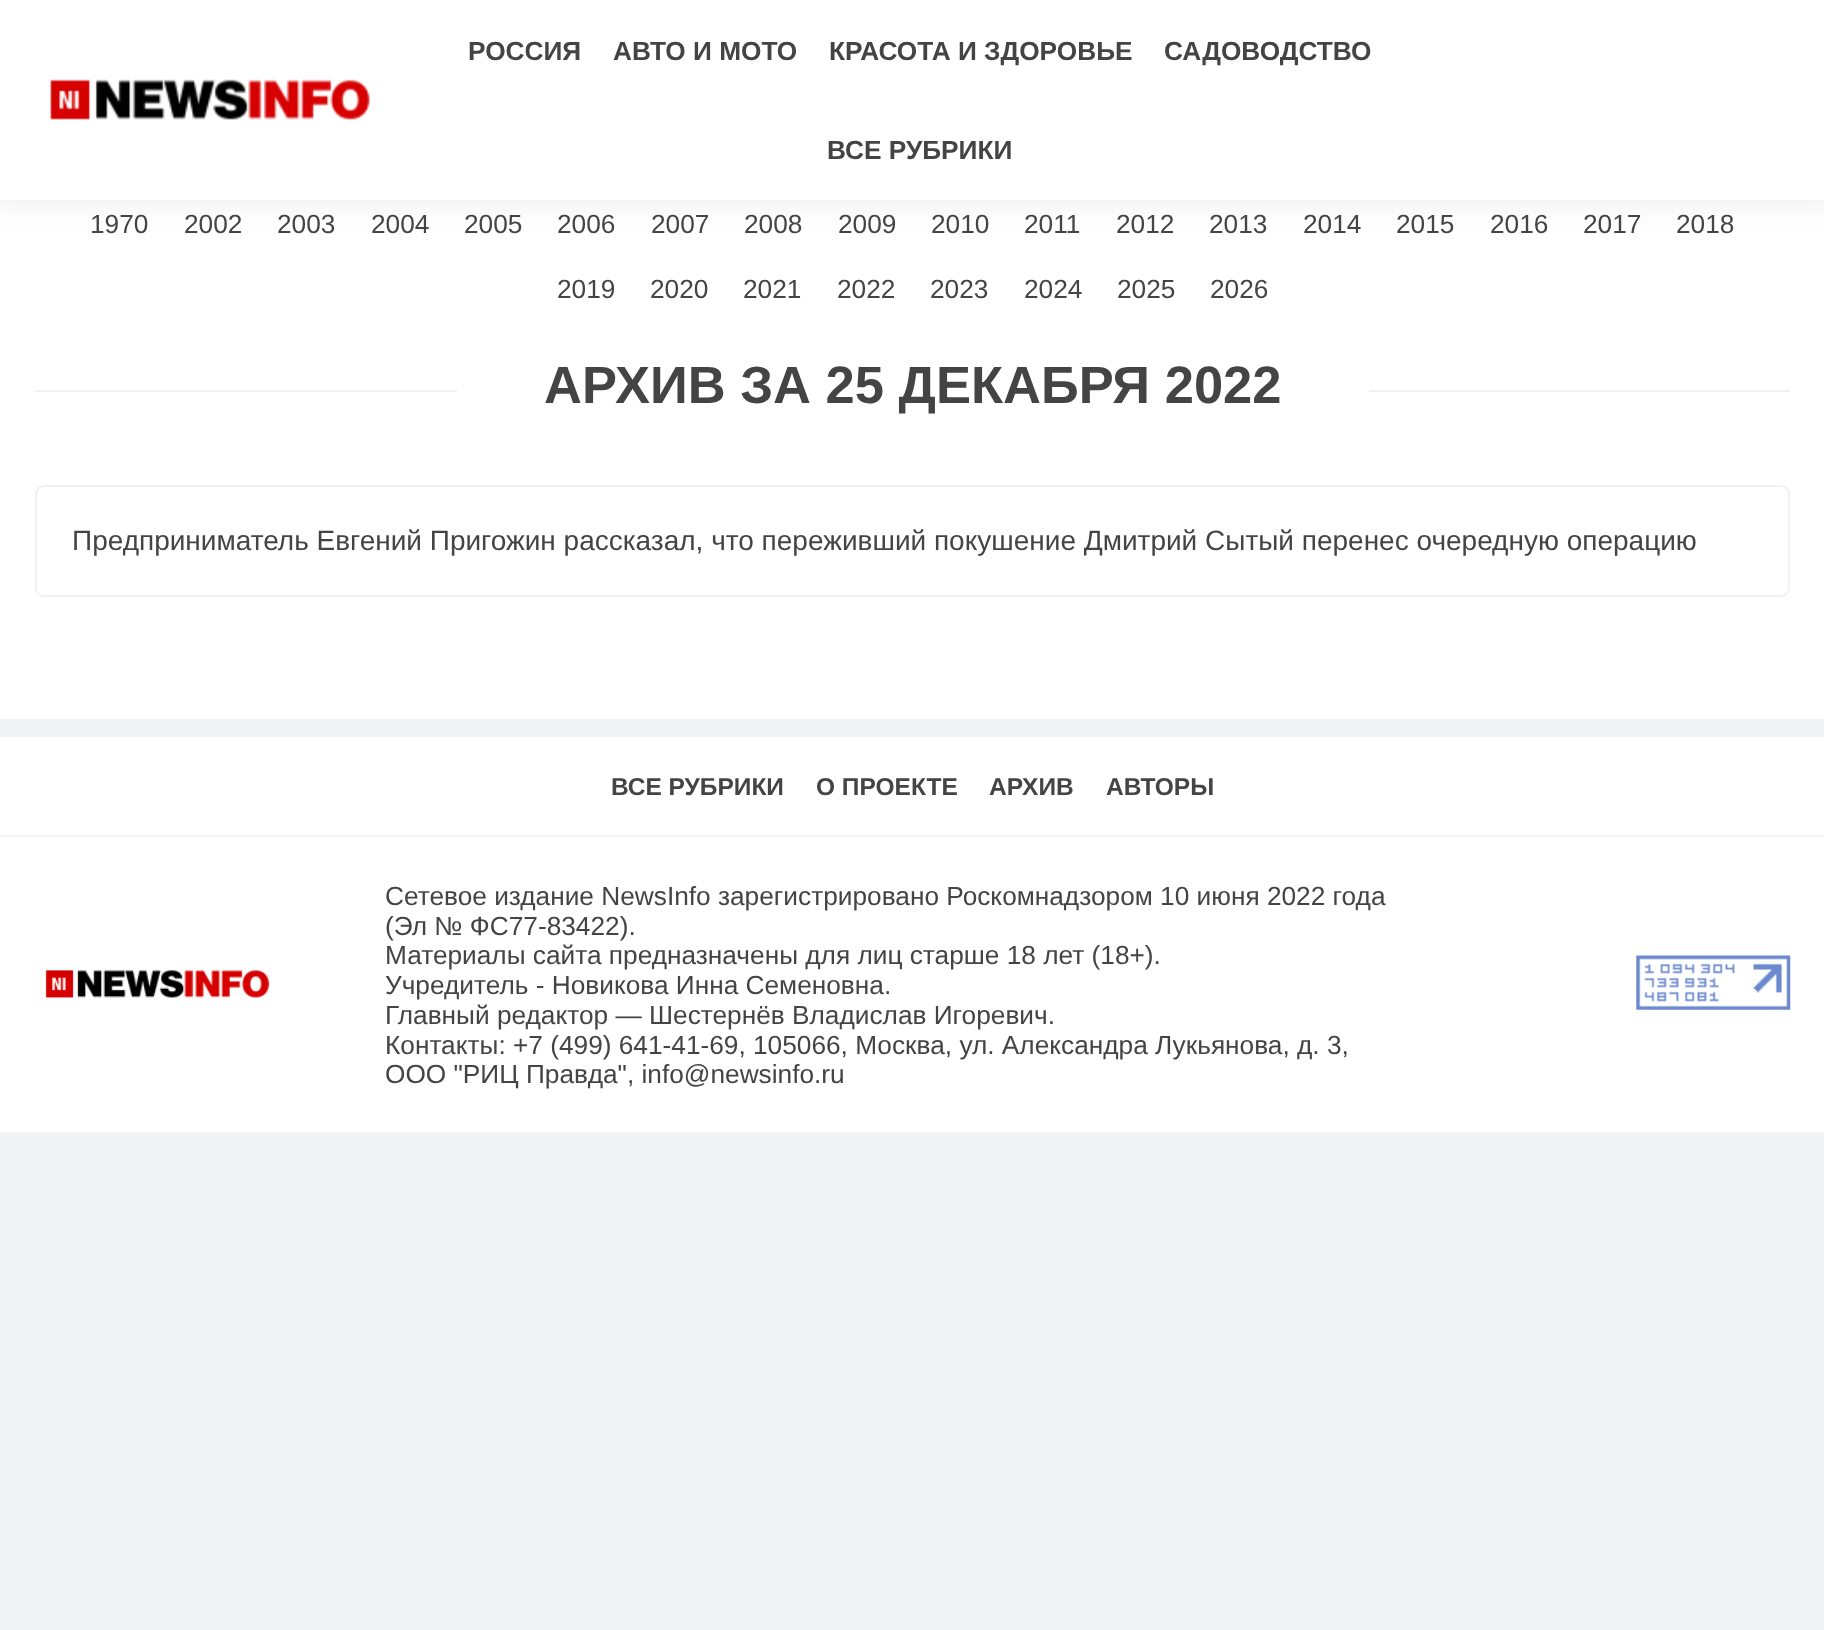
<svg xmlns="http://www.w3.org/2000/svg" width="1824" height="1630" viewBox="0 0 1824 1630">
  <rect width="100%" height="100%" fill="#f1f3f5"/>
  <path d="M0 200h1824v519H0z" fill="#fff"/>
  <path d="M-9 -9h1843v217H-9z" fill="#0000000d" filter="blur(13px)"/>
  <path d="M0 0h1824v200H0z" fill="#fff"/>
  <image x="50" y="79" width="320" height="41" href="img/1.png"/>
  <path d="M35 390h1755v2H35z" fill="#f1f1f1"/>
  <path d="M457 390h912v2H457z" fill="#fff"/>
  <rect x="36" y="486" width="1753" height="110" rx="8" fill="none" stroke="#f1f1f1" stroke-width="2"/>
  <path d="M0 737h1824v395H0z" fill="#fff"/>
  <path d="M0 835h1824v2H0z" fill="#f1f3f5"/>
  <image x="45" y="970" width="225" height="28" href="img/2.png"/>
  <image x="1636" y="955" width="155" height="55" href="img/3.png"/>
  <g font-family="Liberation Sans" font-size="26.25" font-weight="bold" fill="#444">
    <text x="468" y="60">РОССИЯ</text>
    <text x="613" y="60">АВТО И МОТО</text>
    <text x="829" y="60">КРАСОТА И ЗДОРОВЬЕ</text>
    <text x="1164" y="60">САДОВОДСТВО</text>
    <text x="827" y="159">ВСЕ РУБРИКИ</text>
  </g>
  <g font-family="Liberation Sans" font-size="26.25" fill="#444">
    <text x="90" y="233">1970</text>
    <text x="184" y="233">2002</text>
    <text x="277" y="233">2003</text>
    <text x="371" y="233">2004</text>
    <text x="464" y="233">2005</text>
    <text x="557" y="233">2006</text>
    <text x="651" y="233">2007</text>
    <text x="744" y="233">2008</text>
    <text x="838" y="233">2009</text>
    <text x="931" y="233">2010</text>
    <text x="1024" y="233">2011</text>
    <text x="1116" y="233">2012</text>
    <text x="1209" y="233">2013</text>
    <text x="1303" y="233">2014</text>
    <text x="1396" y="233">2015</text>
    <text x="1490" y="233">2016</text>
    <text x="1583" y="233">2017</text>
    <text x="1676" y="233">2018</text>
    <text x="557" y="298">2019</text>
    <text x="650" y="298">2020</text>
    <text x="743" y="298">2021</text>
    <text x="837" y="298">2022</text>
    <text x="930" y="298">2023</text>
    <text x="1024" y="298">2024</text>
    <text x="1117" y="298">2025</text>
    <text x="1210" y="298">2026</text>
  </g>
  <text x="544" y="403" font-family="Liberation Sans" font-size="52.5" font-weight="bold" fill="#444">АРХИВ ЗА 25 ДЕКАБРЯ 2022</text>
  <text x="72" y="550" font-family="Liberation Sans" font-size="28" fill="#444">Предприниматель Евгений Пригожин рассказал, что переживший покушение Дмитрий Сытый перенес очередную операцию</text>
  <g font-family="Liberation Sans" font-size="24.5" font-weight="bold" fill="#444">
    <text x="611" y="795">ВСЕ РУБРИКИ</text>
    <text x="816" y="795">О ПРОЕКТЕ</text>
    <text x="989" y="795">АРХИВ</text>
    <text x="1106" y="795">АВТОРЫ</text>
  </g>
  <g font-family="Liberation Sans" font-size="26.25" fill="#444">
    <text x="385" y="905">Сетевое издание NewsInfo зарегистрировано Роскомнадзором 10 июня 2022 года</text>
    <text x="385" y="935">(Эл № ФС77-83422).</text>
    <text x="385" y="964">Материалы сайта предназначены для лиц старше 18 лет (18+).</text>
    <text x="385" y="994">Учредитель - Новикова Инна Семеновна.</text>
    <text x="385" y="1024">Главный редактор — Шестернёв Владислав Игоревич.</text>
    <text x="385" y="1054">Контакты: +7 (499) 641-41-69, 105066, Москва, ул. Александра Лукьянова, д. 3,</text>
    <text x="385" y="1083">ООО "РИЦ Правда", info@newsinfo.ru</text>
  </g>
</svg>
